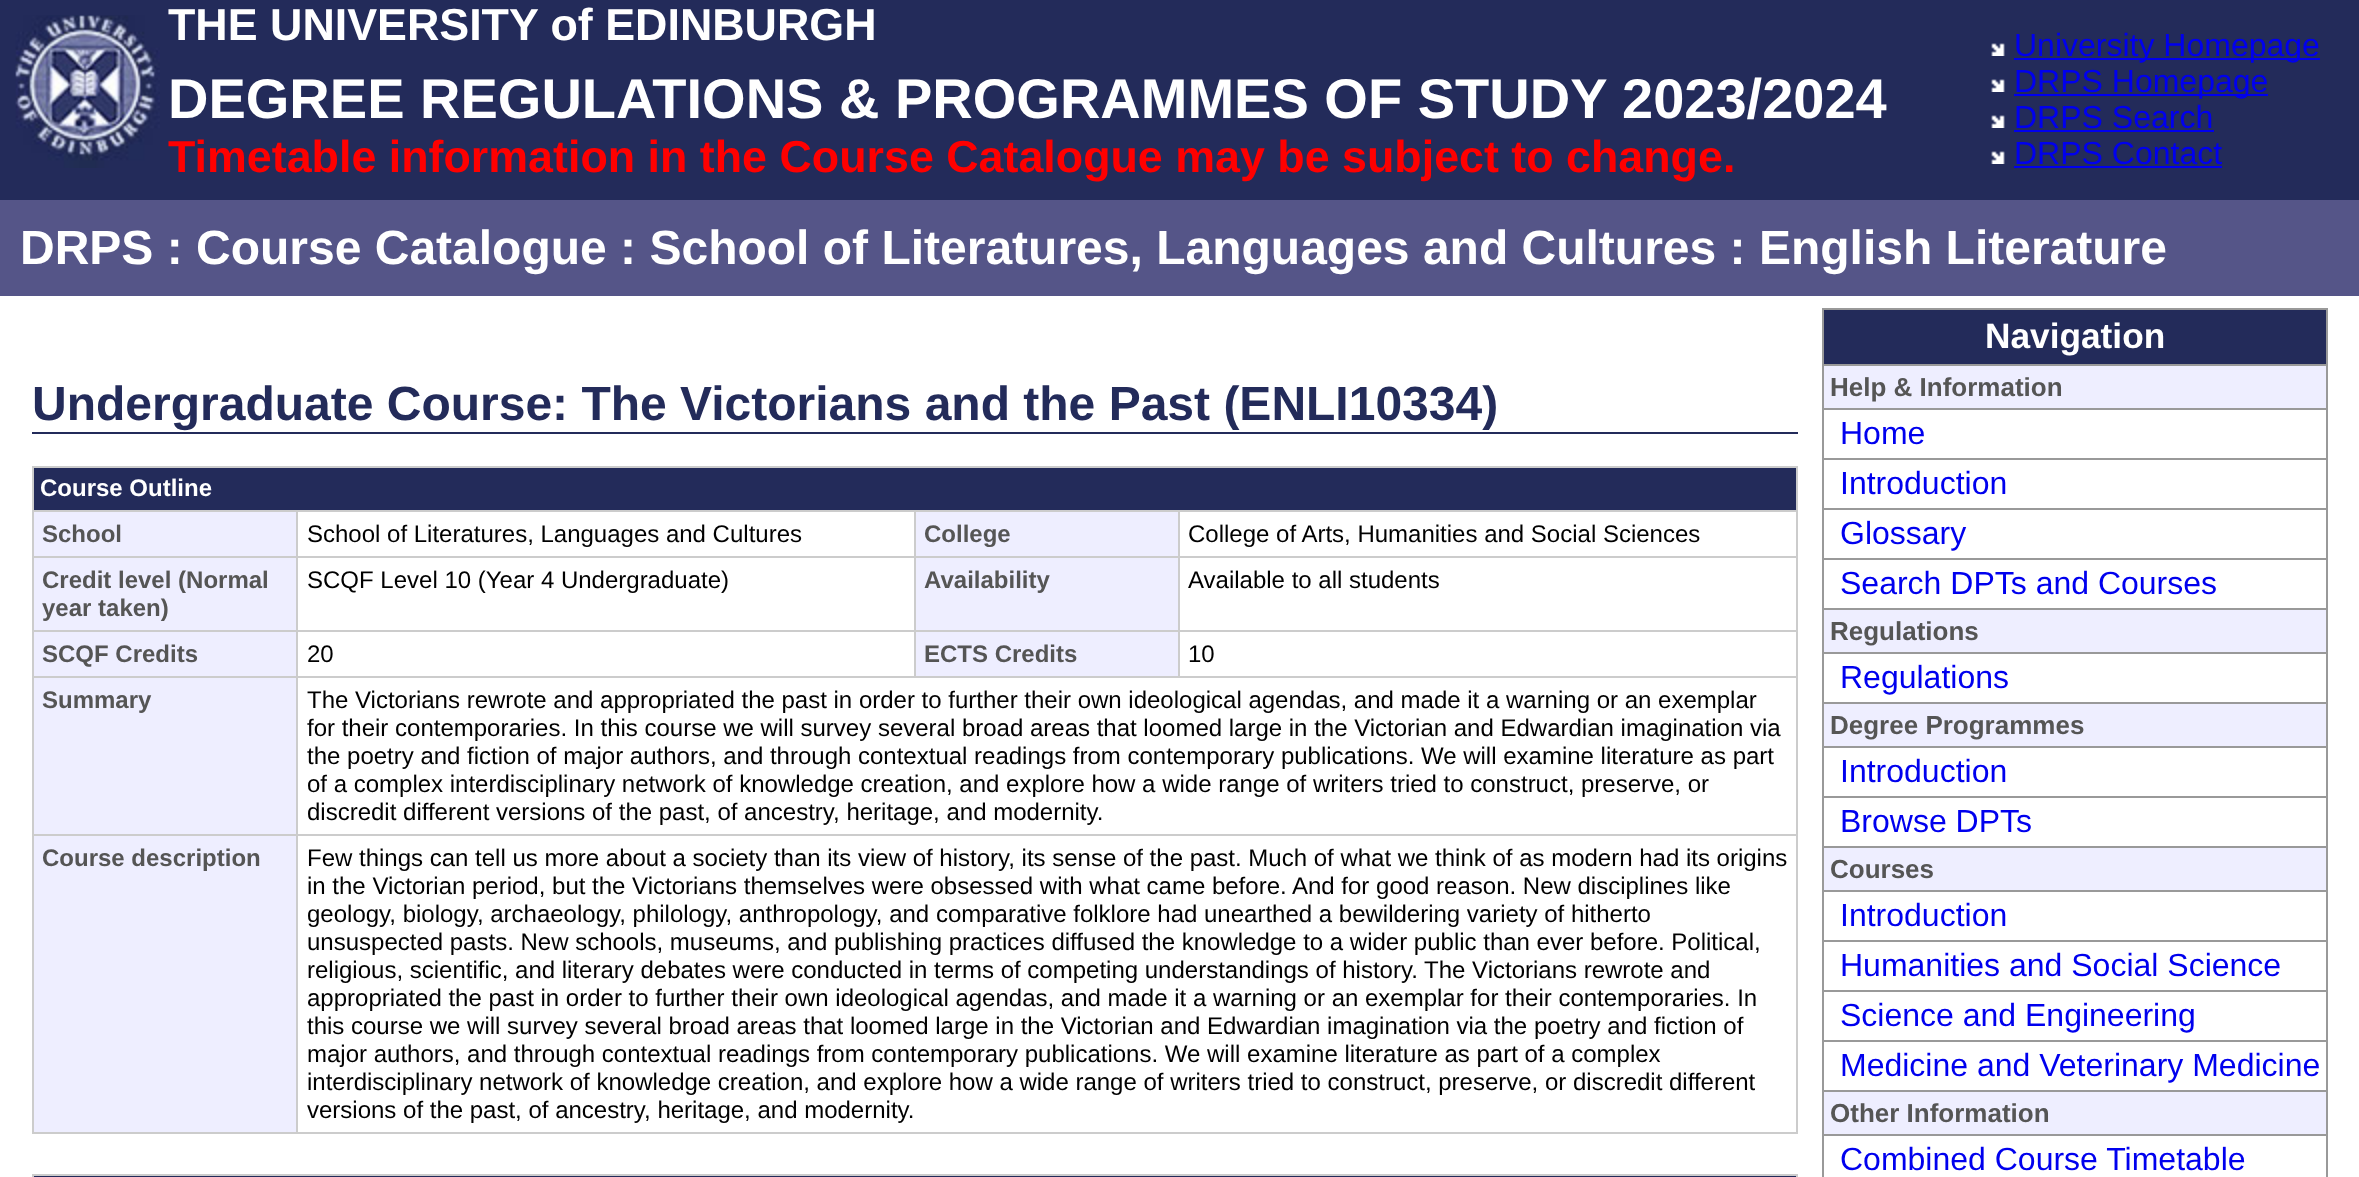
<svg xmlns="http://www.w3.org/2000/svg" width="2359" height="1177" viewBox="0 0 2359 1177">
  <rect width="100%" height="100%" fill="#fff"/>
  <path d="M0 0h2359v200H0z" fill="#232b5a"/>
  <image x="15" y="15" width="145" height="153" href="img/1.png"/>
  <image x="1991" y="43" width="14" height="13" href="img/2.png"/>
  <path d="M2014 58h306v2H2014z" fill="#00e"/>
  <image x="1991" y="79" width="14" height="13" href="img/2.png"/>
  <path d="M2014 94h254v2H2014z" fill="#00e"/>
  <image x="1991" y="115" width="14" height="13" href="img/2.png"/>
  <path d="M2014 130h200v2H2014z" fill="#00e"/>
  <image x="1991" y="151" width="14" height="13" href="img/2.png"/>
  <path d="M2014 166h208v2H2014z" fill="#00e"/>
  <path d="M0 200h2359v96H0z" fill="#558"/>
  <path d="M32 432h1766v2H32z" fill="#232b5a"/>
  <path d="M32 466h1766v2H32z" fill="#ccc"/>
  <path d="M1796 466h2v668H1796z" fill="#ccc"/>
  <path d="M32 1132h1766v2H32z" fill="#ccc"/>
  <path d="M32 466h2v668H32z" fill="#ccc"/>
  <path d="M34 468h1762v42H34z" fill="#232b5a"/>
  <path d="M34 512h262v44H34z" fill="#eef"/>
  <path d="M1178 510h620v2H1178z" fill="#ccc"/>
  <path d="M1178 556h620v2H1178z" fill="#ccc"/>
  <path d="M1178 630h620v2H1178z" fill="#ccc"/>
  <path d="M296 676h1502v2H296z" fill="#ccc"/>
  <path d="M1178 630h2v48H1178z" fill="#ccc"/>
  <path d="M914 630h266v2H914z" fill="#ccc"/>
  <path d="M1178 556h2v76H1178z" fill="#ccc"/>
  <path d="M914 556h266v2H914z" fill="#ccc"/>
  <path d="M1178 510h2v48H1178z" fill="#ccc"/>
  <path d="M914 510h266v2H914z" fill="#ccc"/>
  <path d="M914 630h2v48H914z" fill="#ccc"/>
  <path d="M296 630h620v2H296z" fill="#ccc"/>
  <path d="M914 556h2v76H914z" fill="#ccc"/>
  <path d="M296 556h620v2H296z" fill="#ccc"/>
  <path d="M914 510h2v48H914z" fill="#ccc"/>
  <path d="M296 510h620v2H296z" fill="#ccc"/>
  <path d="M296 834h1502v2H296z" fill="#ccc"/>
  <path d="M296 834h2v300H296z" fill="#ccc"/>
  <path d="M32 834h266v2H32z" fill="#ccc"/>
  <path d="M296 676h2v160H296z" fill="#ccc"/>
  <path d="M32 676h266v2H32z" fill="#ccc"/>
  <path d="M296 630h2v48H296z" fill="#ccc"/>
  <path d="M32 630h266v2H32z" fill="#ccc"/>
  <path d="M296 556h2v76H296z" fill="#ccc"/>
  <path d="M32 556h266v2H32z" fill="#ccc"/>
  <path d="M296 510h2v48H296z" fill="#ccc"/>
  <path d="M32 510h266v2H32z" fill="#ccc"/>
  <path d="M916 512h262v44H916z" fill="#eef"/>
  <path d="M34 558h262v72H34z" fill="#eef"/>
  <path d="M916 558h262v72H916z" fill="#eef"/>
  <path d="M34 632h262v44H34z" fill="#eef"/>
  <path d="M916 632h262v44H916z" fill="#eef"/>
  <path d="M34 678h262v156H34z" fill="#eef"/>
  <path d="M34 836h262v296H34z" fill="#eef"/>
  <path d="M32 1174h1766v2H32z" fill="#ccc"/>
  <path d="M32 1176h1766v1H32z" fill="#232b5a"/>
  <path d="M1796 1174h2v3H1796z" fill="#ccc"/>
  <path d="M32 1174h2v3H32z" fill="#ccc"/>
  <path d="M1822 308h506v869H1822z" fill="#999"/>
  <path d="M1824 310h502v54H1824z" fill="#232b5a"/>
  <path d="M1824 366h502v42H1824z" fill="#eef"/>
  <path d="M1824 410h502v48H1824z" fill="#fff"/>
  <path d="M1824 460h502v48H1824z" fill="#fff"/>
  <path d="M1824 510h502v48H1824z" fill="#fff"/>
  <path d="M1824 560h502v48H1824z" fill="#fff"/>
  <path d="M1824 610h502v42H1824z" fill="#eef"/>
  <path d="M1824 654h502v48H1824z" fill="#fff"/>
  <path d="M1824 704h502v42H1824z" fill="#eef"/>
  <path d="M1824 748h502v48H1824z" fill="#fff"/>
  <path d="M1824 798h502v48H1824z" fill="#fff"/>
  <path d="M1824 848h502v42H1824z" fill="#eef"/>
  <path d="M1824 892h502v48H1824z" fill="#fff"/>
  <path d="M1824 942h502v48H1824z" fill="#fff"/>
  <path d="M1824 992h502v48H1824z" fill="#fff"/>
  <path d="M1824 1042h502v48H1824z" fill="#fff"/>
  <path d="M1824 1092h502v42H1824z" fill="#eef"/>
  <path d="M1824 1136h502v41H1824z" fill="#fff"/>
  <text x="168" y="40" font-family="Liberation Sans" font-size="44.8" font-weight="bold" fill="#fff">THE UNIVERSITY of EDINBURGH</text>
  <text x="168" y="118" font-family="Liberation Sans" font-size="56" font-weight="bold" fill="#fff">DEGREE REGULATIONS &amp; PROGRAMMES OF STUDY 2023/2024</text>
  <text x="168" y="172" font-family="Liberation Sans" font-size="44.8" font-weight="bold" fill="#f00">Timetable information in the Course Catalogue may be subject to change.</text>
  <g font-family="Liberation Sans" font-size="32" fill="#00e">
    <text x="2014" y="56">University Homepage</text>
    <text x="2014" y="92">DRPS Homepage</text>
    <text x="2014" y="128">DRPS Search</text>
    <text x="2014" y="164">DRPS Contact</text>
  </g>
  <text x="20" y="264" font-family="Liberation Sans" font-size="48" font-weight="bold" fill="#fff">DRPS : Course Catalogue : School of Literatures, Languages and Cultures : English Literature</text>
  <text x="32" y="420" font-family="Liberation Sans" font-size="48" font-weight="bold" fill="#232b5a">Undergraduate Course: The Victorians and the Past (ENLI10334)</text>
  <text x="40" y="496" font-family="Liberation Sans" font-size="24" font-weight="bold" fill="#fff">Course Outline</text>
  <text x="42" y="542" font-family="Liberation Sans" font-size="24" font-weight="bold" fill="#555">School</text>
  <text x="307" y="542" font-family="Liberation Sans" font-size="24" fill="#000">School of Literatures, Languages and Cultures</text>
  <text x="924" y="542" font-family="Liberation Sans" font-size="24" font-weight="bold" fill="#555">College</text>
  <text x="1188" y="542" font-family="Liberation Sans" font-size="24" fill="#000">College of Arts, Humanities and Social Sciences</text>
  <g font-family="Liberation Sans" font-size="24" font-weight="bold" fill="#555">
    <text x="42" y="588">Credit level (Normal</text>
    <text x="42" y="616">year taken)</text>
  </g>
  <text x="307" y="588" font-family="Liberation Sans" font-size="24" fill="#000">SCQF Level 10 (Year 4 Undergraduate)</text>
  <text x="924" y="588" font-family="Liberation Sans" font-size="24" font-weight="bold" fill="#555">Availability</text>
  <text x="1188" y="588" font-family="Liberation Sans" font-size="24" fill="#000">Available to all students</text>
  <text x="42" y="662" font-family="Liberation Sans" font-size="24" font-weight="bold" fill="#555">SCQF Credits</text>
  <text x="307" y="662" font-family="Liberation Sans" font-size="24" fill="#000">20</text>
  <text x="924" y="662" font-family="Liberation Sans" font-size="24" font-weight="bold" fill="#555">ECTS Credits</text>
  <text x="1188" y="662" font-family="Liberation Sans" font-size="24" fill="#000">10</text>
  <text x="42" y="708" font-family="Liberation Sans" font-size="24" font-weight="bold" fill="#555">Summary</text>
  <g font-family="Liberation Sans" font-size="24" fill="#000">
    <text x="307" y="708">The Victorians rewrote and appropriated the past in order to further their own ideological agendas, and made it a warning or an exemplar</text>
    <text x="307" y="736">for their contemporaries. In this course we will survey several broad areas that loomed large in the Victorian and Edwardian imagination via</text>
    <text x="307" y="764">the poetry and fiction of major authors, and through contextual readings from contemporary publications. We will examine literature as part</text>
    <text x="307" y="792">of a complex interdisciplinary network of knowledge creation, and explore how a wide range of writers tried to construct, preserve, or</text>
    <text x="307" y="820">discredit different versions of the past, of ancestry, heritage, and modernity.</text>
  </g>
  <text x="42" y="866" font-family="Liberation Sans" font-size="24" font-weight="bold" fill="#555">Course description</text>
  <g font-family="Liberation Sans" font-size="24" fill="#000">
    <text x="307" y="866">Few things can tell us more about a society than its view of history, its sense of the past. Much of what we think of as modern had its origins</text>
    <text x="307" y="894">in the Victorian period, but the Victorians themselves were obsessed with what came before. And for good reason. New disciplines like</text>
    <text x="307" y="922">geology, biology, archaeology, philology, anthropology, and comparative folklore had unearthed a bewildering variety of hitherto</text>
    <text x="307" y="950">unsuspected pasts. New schools, museums, and publishing practices diffused the knowledge to a wider public than ever before. Political,</text>
    <text x="307" y="978">religious, scientific, and literary debates were conducted in terms of competing understandings of history. The Victorians rewrote and</text>
    <text x="307" y="1006">appropriated the past in order to further their own ideological agendas, and made it a warning or an exemplar for their contemporaries. In</text>
    <text x="307" y="1034">this course we will survey several broad areas that loomed large in the Victorian and Edwardian imagination via the poetry and fiction of</text>
    <text x="307" y="1062">major authors, and through contextual readings from contemporary publications. We will examine literature as part of a complex</text>
    <text x="307" y="1090">interdisciplinary network of knowledge creation, and explore how a wide range of writers tried to construct, preserve, or discredit different</text>
    <text x="307" y="1118">versions of the past, of ancestry, heritage, and modernity.</text>
  </g>
  <text x="1985" y="348" font-family="Liberation Sans" font-size="35.25" font-weight="bold" fill="#fff">Navigation</text>
  <text x="1830" y="396" font-family="Liberation Sans" font-size="26" font-weight="bold" fill="#555">Help &amp; Information</text>
  <g font-family="Liberation Sans" font-size="32" fill="#00e">
    <text x="1840" y="444">Home</text>
    <text x="1840" y="494">Introduction</text>
    <text x="1840" y="544">Glossary</text>
    <text x="1840" y="594">Search DPTs and Courses</text>
  </g>
  <text x="1830" y="640" font-family="Liberation Sans" font-size="26" font-weight="bold" fill="#555">Regulations</text>
  <text x="1840" y="688" font-family="Liberation Sans" font-size="32" fill="#00e">Regulations</text>
  <text x="1830" y="734" font-family="Liberation Sans" font-size="26" font-weight="bold" fill="#555">Degree Programmes</text>
  <g font-family="Liberation Sans" font-size="32" fill="#00e">
    <text x="1840" y="782">Introduction</text>
    <text x="1840" y="832">Browse DPTs</text>
  </g>
  <text x="1830" y="878" font-family="Liberation Sans" font-size="26" font-weight="bold" fill="#555">Courses</text>
  <g font-family="Liberation Sans" font-size="32" fill="#00e">
    <text x="1840" y="926">Introduction</text>
    <text x="1840" y="976">Humanities and Social Science</text>
    <text x="1840" y="1026">Science and Engineering</text>
    <text x="1840" y="1076">Medicine and Veterinary Medicine</text>
  </g>
  <text x="1830" y="1122" font-family="Liberation Sans" font-size="26" font-weight="bold" fill="#555">Other Information</text>
  <text x="1840" y="1170" font-family="Liberation Sans" font-size="32" fill="#00e">Combined Course Timetable</text>
</svg>
